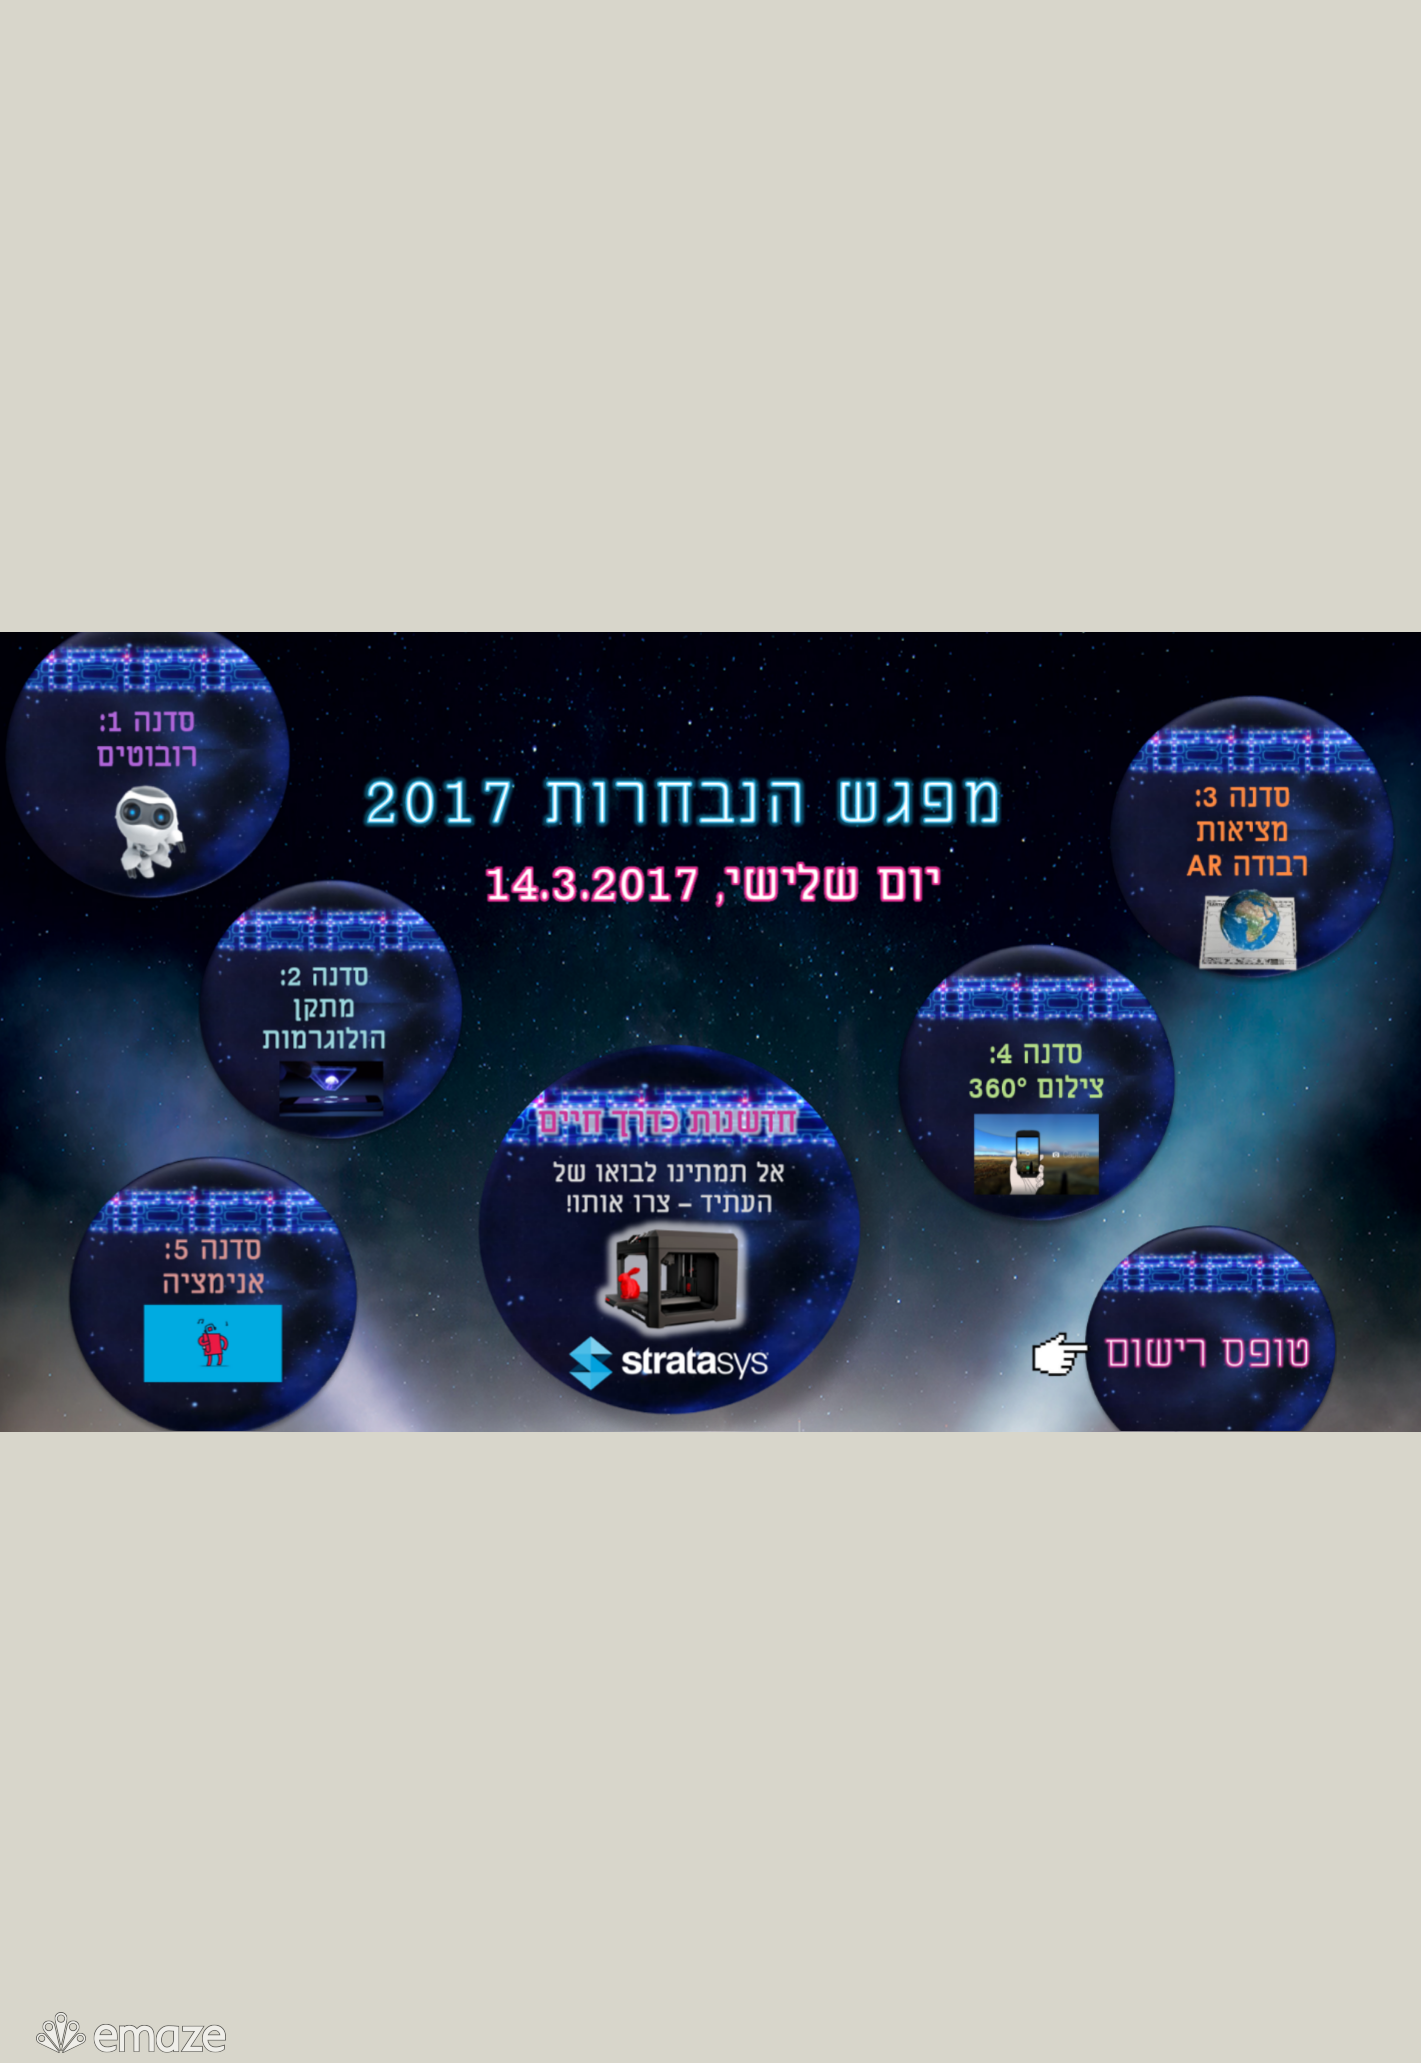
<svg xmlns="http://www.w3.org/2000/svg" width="1421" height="2063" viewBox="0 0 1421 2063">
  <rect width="100%" height="100%" fill="#d8d6cb"/>
  <image x="0" y="632" width="1421" height="800" href="img/1.png"/>
  <image x="198" y="879" width="265" height="265" href="img/5.png"/>
  <image x="5" y="632" width="286" height="269" href="img/2.png"/>
  <image x="362" y="775" width="640" height="54" href="img/3.png"/>
  <image x="896" y="943" width="282" height="284" href="img/7.png"/>
  <image x="1109" y="695" width="287" height="290" href="img/4.png"/>
  <image x="484" y="860" width="458" height="48" href="img/6.png"/>
  <image x="68" y="1156" width="291" height="275" href="img/8.png"/>
  <image x="478" y="1044" width="411" height="387" href="img/9.png"/>
  <image x="1083" y="1225" width="254" height="206" href="img/11.png"/>
  <image x="1031" y="1331" width="60" height="46" href="img/10.png"/>
  <image x="36" y="2012" width="190" height="41" href="img/12.png"/>
</svg>
